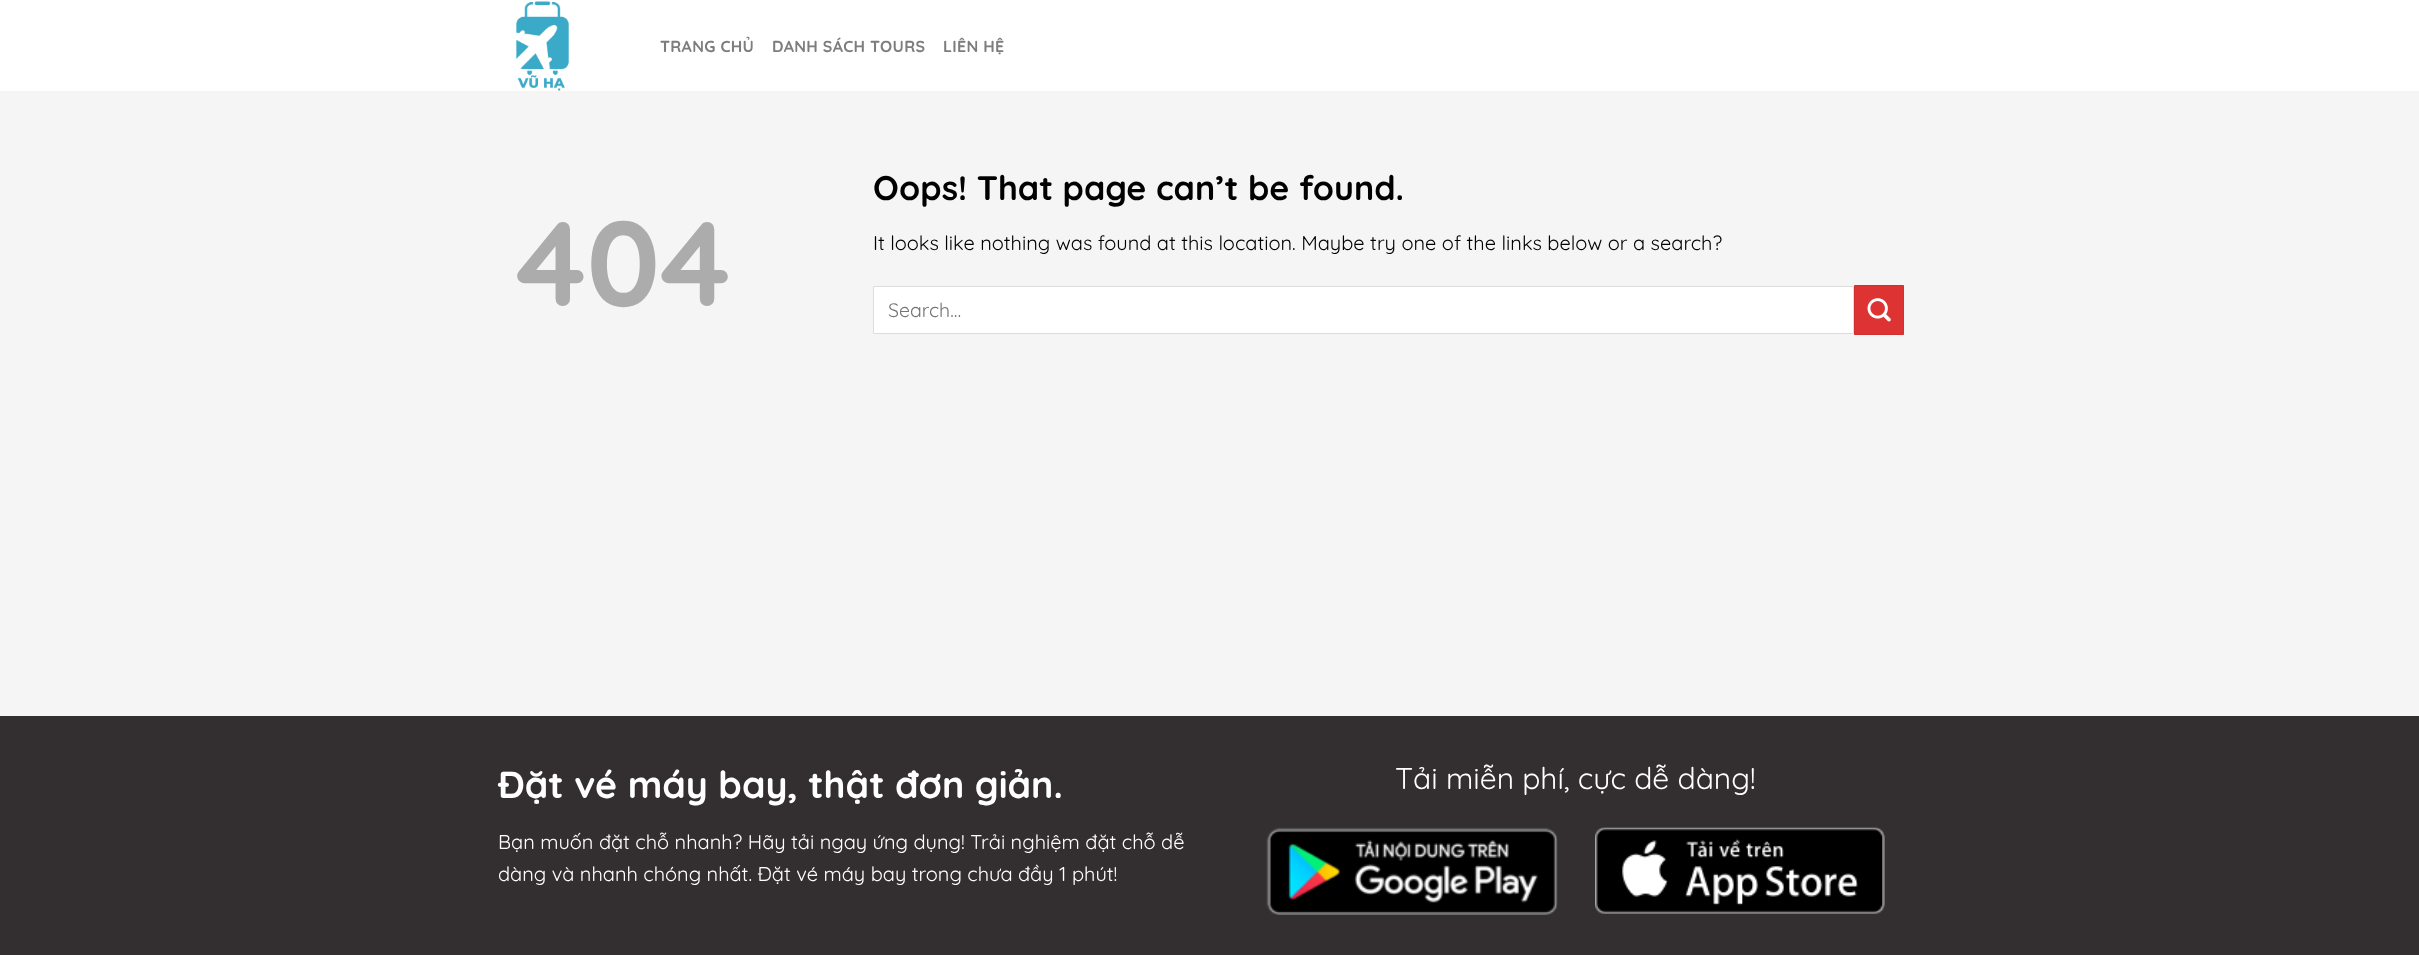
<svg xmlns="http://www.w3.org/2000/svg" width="2419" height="955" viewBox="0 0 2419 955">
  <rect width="100%" height="100%" fill="#f5f5f5"/>
  <path d="M0 0h2419v91H0z" fill="#fff"/>
  <image x="516" y="1" width="53" height="90" href="img/1.png"/>
  <path d="M873.5 286.5h980v47H873.5z" fill="#fff" stroke="#ddd"/>
  <path d="M1854.5 285.5h49v49H1854.5z" fill="#d33" stroke="#d23030"/>
  <image x="1867" y="298" width="24" height="24" href="img/2.png"/>
  <path d="M0 716h2419v239H0z" fill="#332f31"/>
  <image x="1266" y="827" width="292" height="88" href="img/3.png"/>
  <image x="1595" y="827" width="290" height="87" href="img/4.png"/>
  <g font-family="Quicksand" font-size="16" font-weight="bold" letter-spacing="0.3" fill="#7d7d7d">
    <text x="660" y="52">TRANG CHỦ</text>
    <text x="772" y="52">DANH SÁCH TOURS</text>
    <text x="943" y="52">LIÊN HỆ</text>
  </g>
  <text x="516" y="306" font-family="Quicksand" font-size="120" font-weight="bold" fill="#acacac">404</text>
  <text x="873" y="200" font-family="Quicksand" font-size="34" font-weight="bold" fill="#000">Oops! That page can’t be found.</text>
  <text x="873" y="250" font-family="Quicksand" font-size="20" fill="#000">It looks like nothing was found at this location. Maybe try one of the links below or a search?</text>
  <text x="888" y="317" font-family="Quicksand" font-size="19.5" fill="#757575">Search…</text>
  <text x="498" y="798" font-family="Quicksand" font-size="37.5" font-weight="bold" fill="#fff">Đặt vé máy bay, thật đơn giản.</text>
  <g font-family="Quicksand" font-size="20" fill="#fff">
    <text x="498" y="849">Bạn muốn đặt chỗ nhanh? Hãy tải ngay ứng dụng! Trải nghiệm đặt chỗ dễ</text>
    <text x="498" y="881">dàng và nhanh chóng nhất. Đặt vé máy bay trong chưa đầy 1 phút!</text>
  </g>
  <text x="1395" y="789" font-family="Quicksand" font-size="30" fill="#fff">Tải miễn phí, cực dễ dàng!</text>
</svg>
